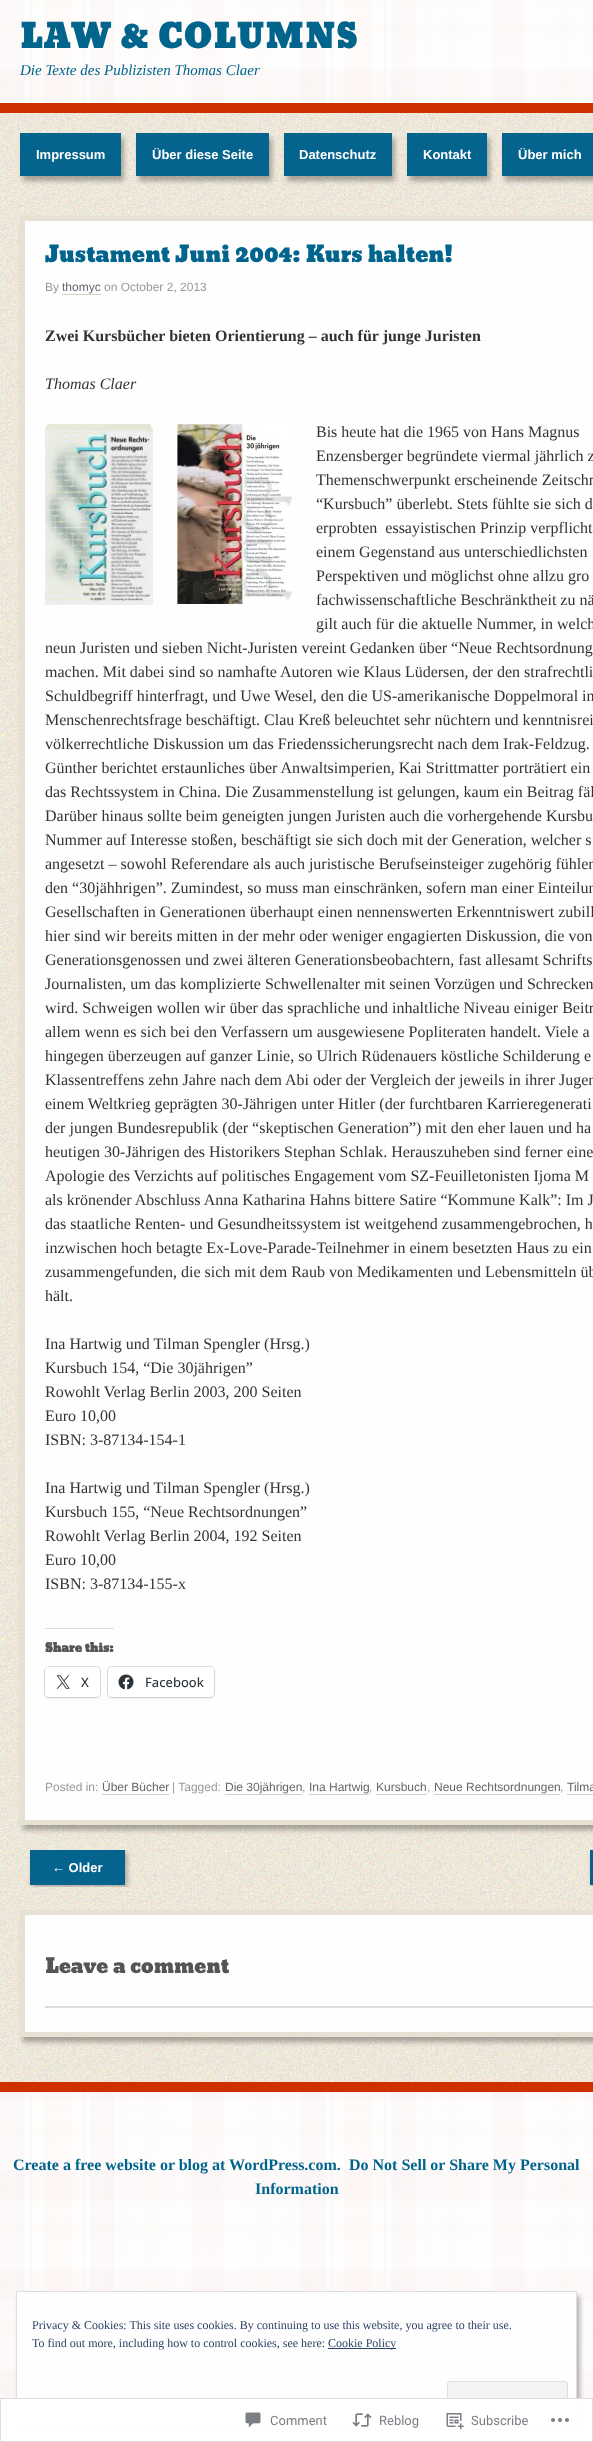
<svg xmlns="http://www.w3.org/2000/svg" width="593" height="2442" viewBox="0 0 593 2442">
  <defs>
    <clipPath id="clip1"><path d="M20 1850h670v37H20z"/></clipPath>
  </defs>
  <rect width="100%" height="100%" fill="#fff"/>
  <image x="0" y="0" width="593" height="2442" href="img/1.png"/>
  <path d="M0 103h593v10H0z" fill="#ce3000"/>
  <image x="0" y="113" width="593" height="1969" href="img/2.png"/>
  <path d="M23 138h101v43H23z" fill="#0000004d" filter="blur(2.5px)"/>
  <path d="M20 133h101v43H20z" fill="#04648d"/>
  <path d="M139 138h133v43H139z" fill="#0000004d" filter="blur(2.5px)"/>
  <path d="M136 133h133v43H136z" fill="#04648d"/>
  <path d="M287 138h108v43H287z" fill="#0000004d" filter="blur(2.5px)"/>
  <path d="M284 133h108v43H284z" fill="#04648d"/>
  <path d="M410 138h80v43H410z" fill="#0000004d" filter="blur(2.5px)"/>
  <path d="M407 133h80v43H407z" fill="#04648d"/>
  <path d="M505 138h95v43H505z" fill="#0000004d" filter="blur(2.5px)"/>
  <path d="M502 133h91v43H502z" fill="#04648d"/>
  <path d="M23 221h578v1609H23z" fill="#0000004d" filter="blur(2.5px)"/>
  <path d="M22.5 218.5h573v1604H22.5z" fill="#fefefe" stroke="#e7e1d4" stroke-width="5"/>
  <path d="M62 294h39v1H62z" fill="#d8d1c3"/>
  <image x="45" y="424" width="108" height="181" href="img/3.png"/>
  <image x="177" y="424" width="115" height="180" href="img/4.png"/>
  <path d="M45 1628h69v1H45z" fill="#dcdcde"/>
  <rect x="44.5" y="1666.5" width="56" height="31" rx="4.5" fill="none" stroke="#e0e0e0"/>
  <rect x="45" y="1668" width="55" height="30" rx="4" fill="#0000001f" filter="blur(1px)"/>
  <rect x="45" y="1667" width="55" height="30" rx="4" fill="#fff"/>
  <image x="56" y="1675" width="14" height="14" href="img/5.png"/>
  <rect x="107.5" y="1666.5" width="107" height="31" rx="4.5" fill="none" stroke="#e0e0e0"/>
  <rect x="108" y="1668" width="106" height="30" rx="4" fill="#0000001f" filter="blur(1px)"/>
  <rect x="108" y="1667" width="106" height="30" rx="4" fill="#fff"/>
  <image x="118" y="1674" width="16" height="16" href="img/6.png"/>
  <path d="M102 1794h67v1H102z" fill="#d8d1c3"/>
  <path d="M225 1794h77v1H225z" fill="#d8d1c3"/>
  <path d="M309 1794h60v1H309z" fill="#d8d1c3"/>
  <path d="M376 1794h51v1H376z" fill="#d8d1c3"/>
  <path d="M434 1794h126v1H434z" fill="#d8d1c3"/>
  <path d="M567 1794h26v1H567z" fill="#d8d1c3"/>
  <g clip-path="url(#clip1)">
    <path d="M32 1852h95v35H32z" fill="#0000004d" filter="blur(2.5px)"/>
  </g>
  <path d="M30 1850h95v35H30z" fill="#04648d"/>
  <g clip-path="url(#clip1)">
    <path d="M592 1852h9v35H592z" fill="#0000004d" filter="blur(2.5px)"/>
  </g>
  <path d="M590 1850h3v35H590z" fill="#04648d"/>
  <path d="M23 1915h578v127H23z" fill="#0000004d" filter="blur(2.5px)"/>
  <path d="M22.5 1912.5h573v122H22.5z" fill="#fefefe" stroke="#e7e1d4" stroke-width="5"/>
  <path d="M45 2006h548v2H45z" fill="#dcdcde"/>
  <path d="M0 2082h593v10H0z" fill="#ce3000"/>
  <path d="M19 2296h561v135H19z" fill="#0000004d" filter="blur(2.5px)"/>
  <path d="M16.5 2291.5h560v134H16.5z" fill="#fefefe" stroke="#dedede"/>
  <path d="M328 2348h68v1H328z" fill="#2e4467"/>
  <rect x="447.5" y="2381.5" width="120" height="35" rx="2.5" fill="#f3f3f3" stroke="#dedede"/>
  <path d="M0 2398h593v44H0z" fill="#fffffffa"/>
  <path d="M0.5 2398.5h592v43H0.5z" fill="none" stroke="#dcdcdefa"/>
  <image x="245" y="2412" width="16" height="16" href="img/7.png"/>
  <image x="352" y="2413" width="20" height="14" href="img/8.png"/>
  <image x="446" y="2413" width="18" height="17" href="img/9.png"/>
  <image x="551" y="2418" width="18" height="4" href="img/10.png"/>
  <text x="20" y="48" font-family="Bevan" font-size="33" letter-spacing="1" fill="#00648d">LAW &amp; COLUMNS</text>
  <text x="20" y="75" font-family="Liberation Serif" font-size="15" font-style="italic" fill="#00648d">Die Texte des Publizisten Thomas Claer</text>
  <g font-family="Liberation Sans" font-size="13" font-weight="bold" fill="#fff">
    <text x="36" y="159">Impressum</text>
    <text x="152" y="159">Über diese Seite</text>
    <text x="299" y="159">Datenschutz</text>
    <text x="423" y="159">Kontakt</text>
    <text x="518" y="159">Über mich</text>
  </g>
  <text x="45" y="262" font-family="Bevan" font-size="22" fill="#00648d">Justament Juni 2004: Kurs halten!</text>
  <text x="45" y="291" font-family="Liberation Sans" font-size="12" fill="#999">By</text>
  <text x="62" y="291" font-family="Liberation Sans" font-size="12" fill="#666">thomyc</text>
  <text x="104" y="291" font-family="Liberation Sans" font-size="12" fill="#999">on October 2, 2013</text>
  <text x="45" y="341" font-family="Liberation Serif" font-size="16" font-weight="bold" fill="#333">Zwei Kursbücher bieten Orientierung – auch für junge Juristen</text>
  <text x="45" y="389" font-family="Liberation Serif" font-size="16" font-style="italic" fill="#333">Thomas Claer</text>
  <g font-family="Liberation Serif" font-size="16" fill="#333">
    <text x="316" y="437">Bis heute hat die 1965 von Hans Magnus</text>
    <text x="316" y="461">Enzensberger begründete viermal jährlich z</text>
    <text x="316" y="485">Themenschwerpunkt erscheinende Zeitschr</text>
    <text x="316" y="509">“Kursbuch” überlebt. Stets fühlte sie sich d</text>
    <text x="316" y="533" xml:space="preserve">erprobten  essayistischen Prinzip verpflicht</text>
    <text x="316" y="557">einem Gegenstand aus unterschiedlichsten</text>
    <text x="316" y="581">Perspektiven und möglichst ohne allzu gro</text>
    <text x="316" y="605">fachwissenschaftliche Beschränktheit zu nä</text>
    <text x="316" y="629">gilt auch für die aktuelle Nummer, in welch</text>
    <text x="45" y="653">neun Juristen und sieben Nicht-Juristen vereint Gedanken über “Neue Rechtsordnung</text>
    <text x="45" y="677">machen. Mit dabei sind so namhafte Autoren wie Klaus Lüdersen, der den strafrechtli</text>
    <text x="45" y="701">Schuldbegriff hinterfragt, und Uwe Wesel, den die US-amerikanische Doppelmoral in</text>
    <text x="45" y="725">Menschenrechtsfrage beschäftigt. Clau Kreß beleuchtet sehr nüchtern und kenntnisrei</text>
    <text x="45" y="749">völkerrechtliche Diskussion um das Friedenssicherungsrecht nach dem Irak-Feldzug.</text>
    <text x="45" y="773">Günther berichtet erstaunliches über Anwaltsimperien, Kai Strittmatter porträtiert ein</text>
    <text x="45" y="797">das Rechtssystem in China. Die Zusammenstellung ist gelungen, kaum ein Beitrag fäl</text>
    <text x="45" y="821">Darüber hinaus sollte beim geneigten jungen Juristen auch die vorhergehende Kursbu</text>
    <text x="45" y="845">Nummer auf Interesse stoßen, beschäftigt sie sich doch mit der Generation, welcher s</text>
    <text x="45" y="869">angesetzt – sowohl Referendare als auch juristische Berufseinsteiger zugehörig fühlen</text>
    <text x="45" y="893">den “30jähhrigen”. Zumindest, so muss man einschränken, sofern man einer Einteilun</text>
    <text x="45" y="917">Gesellschaften in Generationen überhaupt einen nennenswerten Erkenntniswert zubill</text>
    <text x="45" y="941">hier sind wir bereits mitten in der mehr oder weniger engagierten Diskussion, die von</text>
    <text x="45" y="965">Generationsgenossen und zwei älteren Generationsbeobachtern, fast allesamt Schrifts</text>
    <text x="45" y="989">Journalisten, um das komplizierte Schwellenalter mit seinen Vorzügen und Schrecken</text>
    <text x="45" y="1013">wird. Schweigen wollen wir über das sprachliche und inhaltliche Niveau einiger Beitr</text>
    <text x="45" y="1037">allem wenn es sich bei den Verfassern um ausgewiesene Popliteraten handelt. Viele a</text>
    <text x="45" y="1061">hingegen überzeugen auf ganzer Linie, so Ulrich Rüdenauers köstliche Schilderung e</text>
    <text x="45" y="1085">Klassentreffens zehn Jahre nach dem Abi oder der Vergleich der jeweils in ihrer Jugen</text>
    <text x="45" y="1109">einem Weltkrieg geprägten 30-Jährigen unter Hitler (der furchtbaren Karrieregenerati</text>
    <text x="45" y="1133">der jungen Bundesrepublik (der “skeptischen Generation”) mit den eher lauen und ha</text>
    <text x="45" y="1157">heutigen 30-Jährigen des Historikers Stephan Schlak. Herauszuheben sind ferner eine</text>
    <text x="45" y="1181">Apologie des Verzichts auf politisches Engagement vom SZ-Feuilletonisten Ijoma M</text>
    <text x="45" y="1205">als krönender Abschluss Anna Katharina Hahns bittere Satire “Kommune Kalk”: Im J</text>
    <text x="45" y="1229">das staatliche Renten- und Gesundheitssystem ist weitgehend zusammengebrochen, h</text>
    <text x="45" y="1253">inzwischen hoch betagte Ex-Love-Parade-Teilnehmer in einem besetzten Haus zu ein</text>
    <text x="45" y="1277">zusammengefunden, die sich mit dem Raub von Medikamenten und Lebensmitteln üb</text>
    <text x="45" y="1301">hält.</text>
    <text x="45" y="1349">Ina Hartwig und Tilman Spengler (Hrsg.)</text>
    <text x="45" y="1373">Kursbuch 154, “Die 30jährigen”</text>
    <text x="45" y="1397">Rowohlt Verlag Berlin 2003, 200 Seiten</text>
    <text x="45" y="1421">Euro 10,00</text>
    <text x="45" y="1445">ISBN: 3-87134-154-1</text>
    <text x="45" y="1493">Ina Hartwig und Tilman Spengler (Hrsg.)</text>
    <text x="45" y="1517">Kursbuch 155, “Neue Rechtsordnungen”</text>
    <text x="45" y="1541">Rowohlt Verlag Berlin 2004, 192 Seiten</text>
    <text x="45" y="1565">Euro 10,00</text>
    <text x="45" y="1589">ISBN: 3-87134-155-x</text>
  </g>
  <text x="45" y="1652" font-family="Bevan" font-size="12" font-weight="bold" fill="#555">Share this:</text>
  <g font-family="Open Sans" font-size="13" font-weight="500" fill="#2c3338">
    <text x="81" y="1687">X</text>
    <text x="145" y="1687">Facebook</text>
  </g>
  <text x="45" y="1791" font-family="Liberation Sans" font-size="12" fill="#999">Posted in:</text>
  <text x="102" y="1791" font-family="Liberation Sans" font-size="12" fill="#666">Über Bücher</text>
  <text x="172" y="1791" font-family="Liberation Sans" font-size="12" fill="#999">| Tagged:</text>
  <text x="225" y="1791" font-family="Liberation Sans" font-size="12" fill="#666">Die 30jährigen</text>
  <text x="302" y="1791" font-family="Liberation Sans" font-size="12" fill="#999">,</text>
  <text x="309" y="1791" font-family="Liberation Sans" font-size="12" fill="#666">Ina Hartwig</text>
  <text x="369" y="1791" font-family="Liberation Sans" font-size="12" fill="#999">,</text>
  <text x="376" y="1791" font-family="Liberation Sans" font-size="12" fill="#666">Kursbuch</text>
  <text x="427" y="1791" font-family="Liberation Sans" font-size="12" fill="#999">,</text>
  <text x="434" y="1791" font-family="Liberation Sans" font-size="12" fill="#666">Neue Rechtsordnungen</text>
  <text x="560" y="1791" font-family="Liberation Sans" font-size="12" fill="#999">,</text>
  <text x="567" y="1791" font-family="Liberation Sans" font-size="12" fill="#666">Tilma</text>
  <text x="52" y="1872" font-family="Liberation Sans" font-size="13" font-weight="bold" fill="#fff">← Older</text>
  <text x="45" y="1973" font-family="Bevan" font-size="20" fill="#555">Leave a comment</text>
  <g font-family="Liberation Serif" font-size="16" font-weight="bold" fill="#00648d">
    <text x="13" y="2170">Create a free website or blog at WordPress.com.</text>
    <text x="349" y="2170">Do Not Sell or Share My Personal</text>
    <text x="255" y="2194">Information</text>
  </g>
  <g font-family="Liberation Serif" font-size="12" fill="#2e4467">
    <text x="32" y="2329">Privacy &amp; Cookies: This site uses cookies. By continuing to use this website, you agree to their use.</text>
    <text x="32" y="2347">To find out more, including how to control cookies, see here:</text>
    <text x="328" y="2347">Cookie Policy</text>
  </g>
  <g font-family="Roboto" font-size="13" fill="#7b7f84">
    <text x="270" y="2425">Comment</text>
    <text x="379" y="2425">Reblog</text>
    <text x="471" y="2425">Subscribe</text>
  </g>
</svg>
